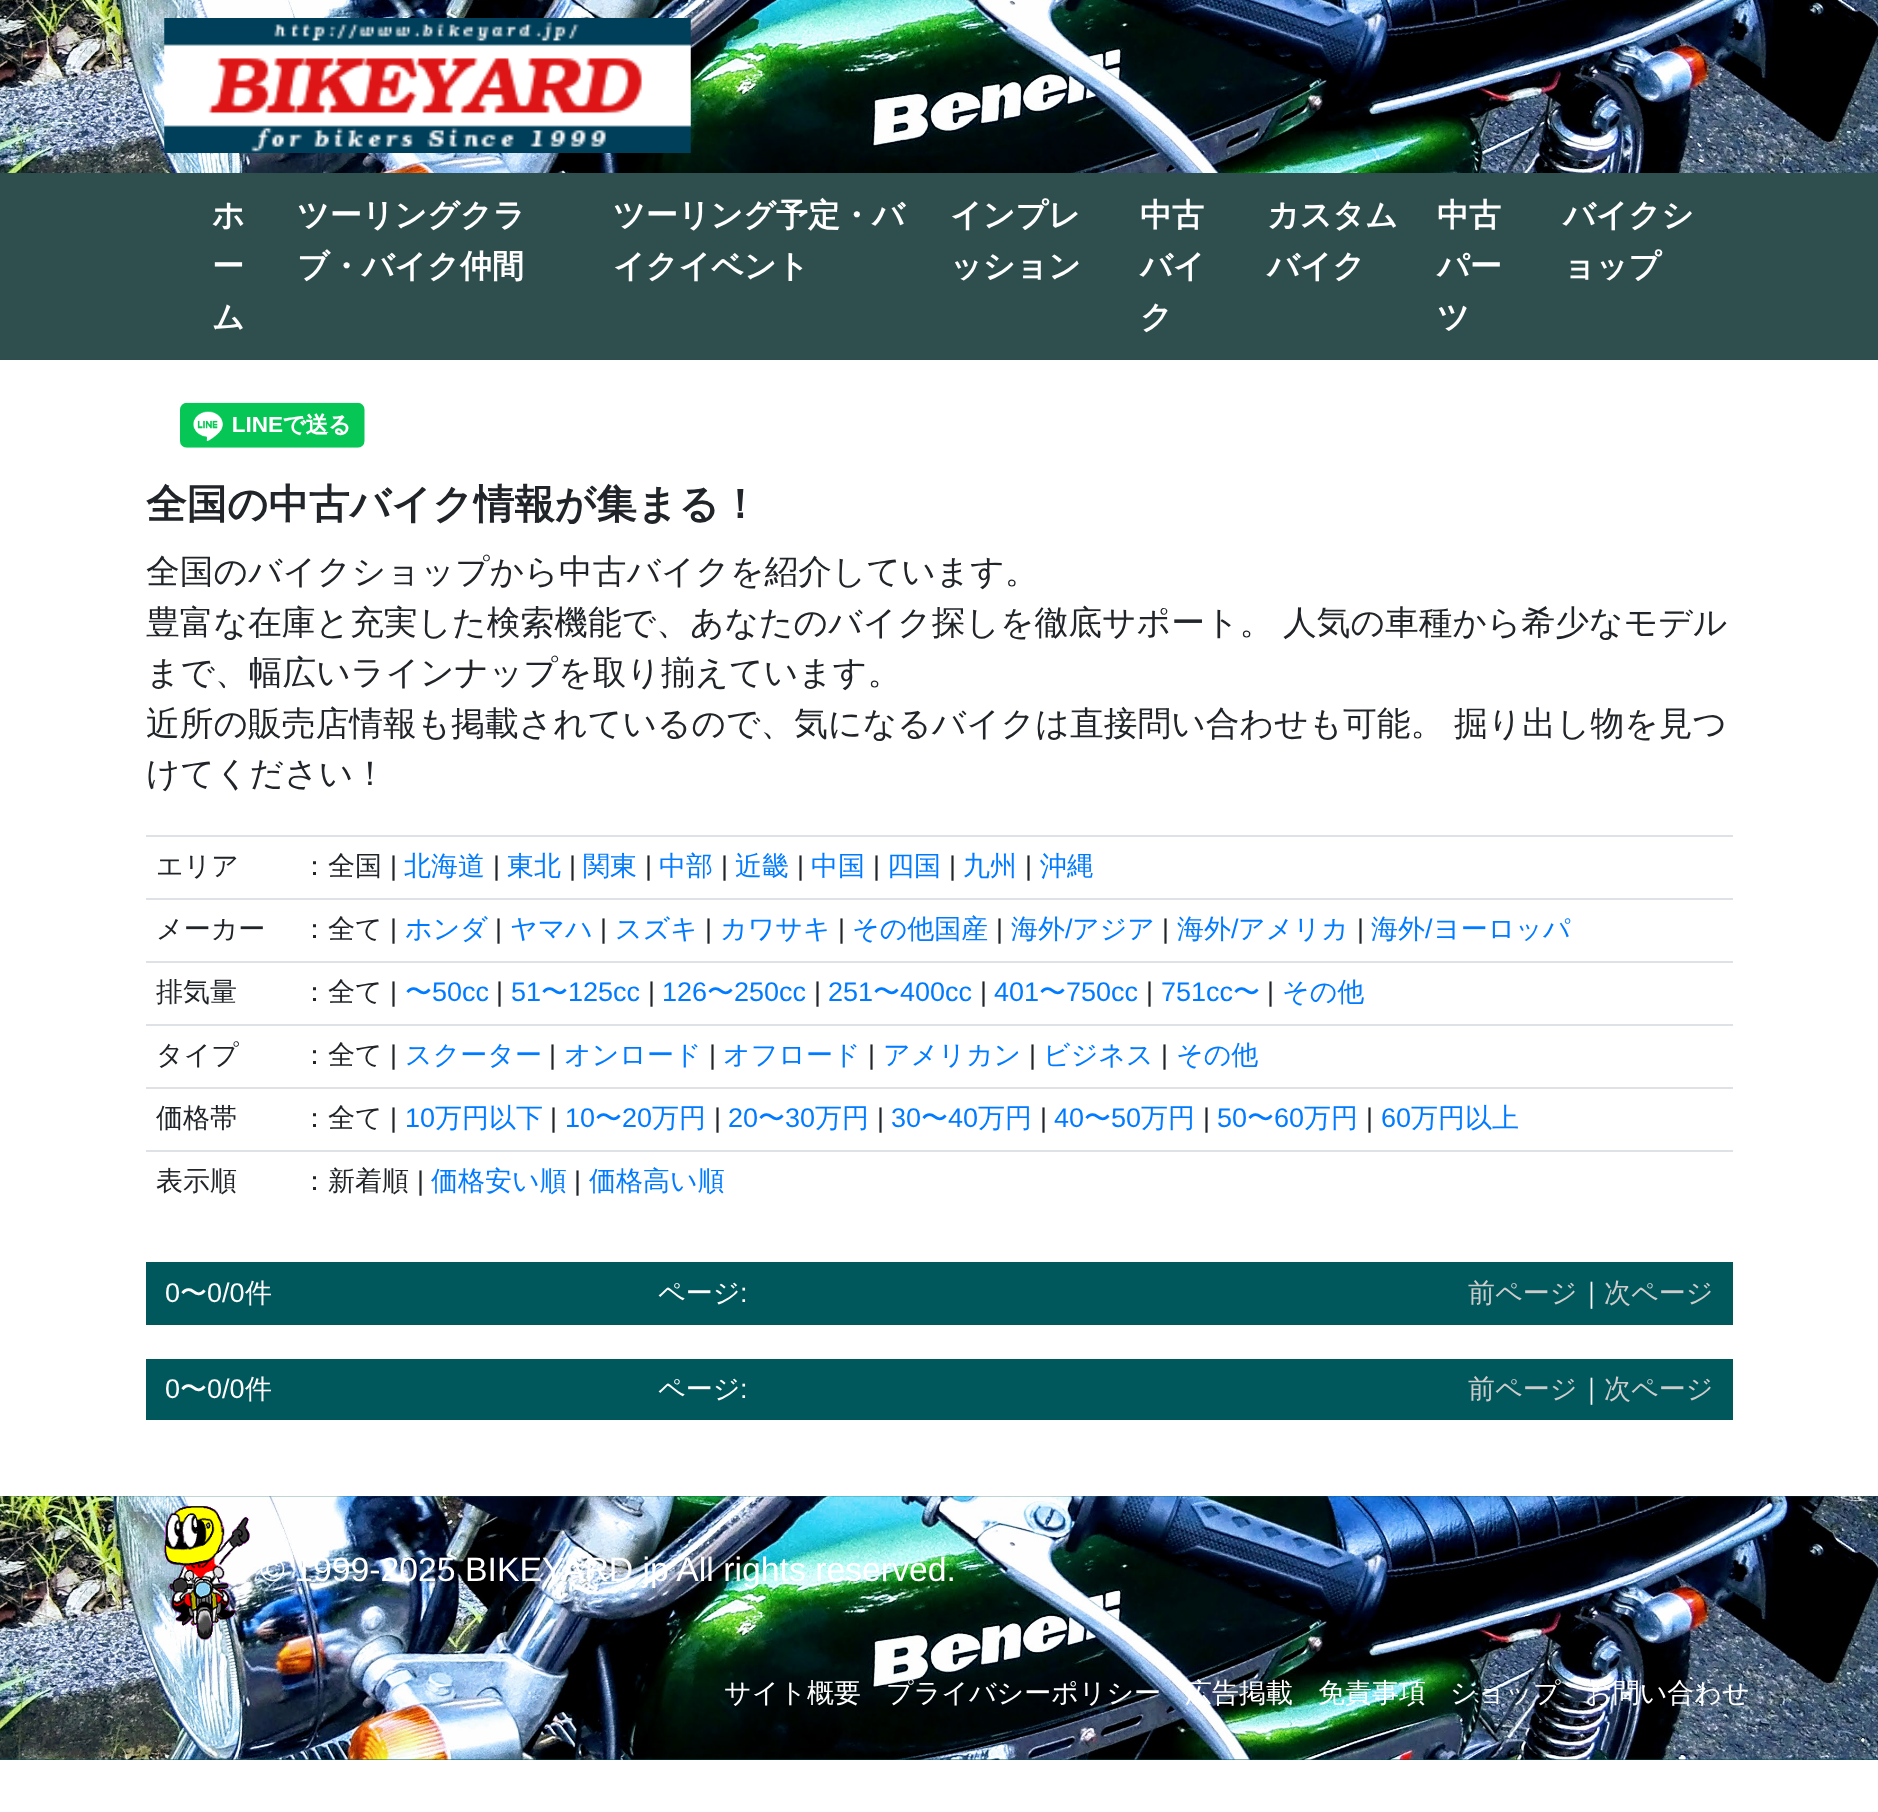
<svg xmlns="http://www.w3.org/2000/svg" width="1878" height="1812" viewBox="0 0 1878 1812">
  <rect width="100%" height="100%" fill="#fff"/>
  <image x="0" y="0" width="1878" height="173" href="img/1.png"/>
  <image x="164" y="18" width="527" height="135" href="img/2.png"/>
  <path d="M0 173h1878v187H0z" fill="#2f4f4f"/>
  <image x="180" y="402" width="185" height="46" href="img/3.png"/>
  <path d="M146 835h1587v2H146z" fill="#dee2e6"/>
  <path d="M146 898h1587v2H146z" fill="#dee2e6"/>
  <path d="M146 961h1587v2H146z" fill="#dee2e6"/>
  <path d="M146 1024h1587v2H146z" fill="#dee2e6"/>
  <path d="M146 1087h1587v2H146z" fill="#dee2e6"/>
  <path d="M146 1150h1587v2H146z" fill="#dee2e6"/>
  <path d="M146 1262h1587v63H146z" fill="#00585d"/>
  <path d="M146 1359h1587v61H146z" fill="#00585d"/>
  <path d="M0 1496h1878v264H0z" fill="#00585d"/>
  <image x="0" y="1496" width="1878" height="264" href="img/4.png"/>
  <image x="164" y="1506" width="86" height="134" href="img/5.png"/>
  <g font-family="WenQuanYi Zen Hei" font-size="32" font-weight="bold" fill="#fff">
    <text x="212" y="226">ホ</text>
    <text x="212" y="277">ー</text>
    <text x="212" y="328">ム</text>
    <text x="297" y="226">ツーリングクラ</text>
    <text x="297" y="277">ブ・バイク仲間</text>
    <text x="613" y="226">ツーリング予定・バ</text>
    <text x="613" y="277">イクイベント</text>
    <text x="950" y="226">インプレ</text>
    <text x="950" y="277">ッション</text>
    <text x="1140" y="226">中古</text>
    <text x="1140" y="277">バイ</text>
    <text x="1140" y="328">ク</text>
    <text x="1267" y="226">カスタム</text>
    <text x="1267" y="277">バイク</text>
    <text x="1437" y="226">中古</text>
    <text x="1437" y="277">パー</text>
    <text x="1437" y="328">ツ</text>
    <text x="1563" y="226">バイクシ</text>
    <text x="1563" y="277">ョップ</text>
  </g>
  <text x="146" y="518" font-family="WenQuanYi Zen Hei" font-size="40.5" font-weight="bold" fill="#212529">全国の中古バイク情報が集まる！</text>
  <g font-family="WenQuanYi Zen Hei" font-size="33.75" font-weight="500" fill="#212529">
    <text x="146" y="583">全国のバイクショップから中古バイクを紹介しています。</text>
    <text x="146" y="634">豊富な在庫と充実した検索機能で、あなたのバイク探しを徹底サポート。</text>
    <text x="1283" y="634">人気の車種から希少なモデル</text>
    <text x="146" y="684">まで、幅広いラインナップを取り揃えています。</text>
    <text x="146" y="735">近所の販売店情報も掲載されているので、気になるバイクは直接問い合わせも可能。</text>
    <text x="1454" y="735">掘り出し物を見つ</text>
    <text x="146" y="785">けてください！</text>
  </g>
  <g font-family="WenQuanYi Zen Hei" font-size="27" font-weight="500" fill="#212529">
    <text x="156" y="875">エリア</text>
    <text x="301" y="875">：全国</text>
  </g>
  <text x="390" y="875" font-family="Liberation Sans" font-size="27" fill="#212529">|</text>
  <text x="404" y="875" font-family="WenQuanYi Zen Hei" font-size="27" font-weight="500" fill="#007bff">北海道</text>
  <text x="493" y="875" font-family="Liberation Sans" font-size="27" fill="#212529">|</text>
  <text x="507" y="875" font-family="WenQuanYi Zen Hei" font-size="27" font-weight="500" fill="#007bff">東北</text>
  <text x="569" y="875" font-family="Liberation Sans" font-size="27" fill="#212529">|</text>
  <text x="583" y="875" font-family="WenQuanYi Zen Hei" font-size="27" font-weight="500" fill="#007bff">関東</text>
  <text x="645" y="875" font-family="Liberation Sans" font-size="27" fill="#212529">|</text>
  <text x="659" y="875" font-family="WenQuanYi Zen Hei" font-size="27" font-weight="500" fill="#007bff">中部</text>
  <text x="721" y="875" font-family="Liberation Sans" font-size="27" fill="#212529">|</text>
  <text x="735" y="875" font-family="WenQuanYi Zen Hei" font-size="27" font-weight="500" fill="#007bff">近畿</text>
  <text x="797" y="875" font-family="Liberation Sans" font-size="27" fill="#212529">|</text>
  <text x="811" y="875" font-family="WenQuanYi Zen Hei" font-size="27" font-weight="500" fill="#007bff">中国</text>
  <text x="873" y="875" font-family="Liberation Sans" font-size="27" fill="#212529">|</text>
  <text x="887" y="875" font-family="WenQuanYi Zen Hei" font-size="27" font-weight="500" fill="#007bff">四国</text>
  <text x="949" y="875" font-family="Liberation Sans" font-size="27" fill="#212529">|</text>
  <text x="963" y="875" font-family="WenQuanYi Zen Hei" font-size="27" font-weight="500" fill="#007bff">九州</text>
  <text x="1025" y="875" font-family="Liberation Sans" font-size="27" fill="#212529">|</text>
  <text x="1040" y="875" font-family="WenQuanYi Zen Hei" font-size="27" font-weight="500" fill="#007bff">沖縄</text>
  <g font-family="WenQuanYi Zen Hei" font-size="27" font-weight="500" fill="#212529">
    <text x="156" y="938">メーカー</text>
    <text x="301" y="938">：全て</text>
  </g>
  <text x="390" y="938" font-family="Liberation Sans" font-size="27" fill="#212529">|</text>
  <text x="405" y="938" font-family="WenQuanYi Zen Hei" font-size="27" font-weight="500" fill="#007bff">ホンダ</text>
  <text x="495" y="938" font-family="Liberation Sans" font-size="27" fill="#212529">|</text>
  <text x="510" y="938" font-family="WenQuanYi Zen Hei" font-size="27" font-weight="500" fill="#007bff">ヤマハ</text>
  <text x="600" y="938" font-family="Liberation Sans" font-size="27" fill="#212529">|</text>
  <text x="615" y="938" font-family="WenQuanYi Zen Hei" font-size="27" font-weight="500" fill="#007bff">スズキ</text>
  <text x="705" y="938" font-family="Liberation Sans" font-size="27" fill="#212529">|</text>
  <text x="720" y="938" font-family="WenQuanYi Zen Hei" font-size="27" font-weight="500" fill="#007bff">カワサキ</text>
  <text x="838" y="938" font-family="Liberation Sans" font-size="27" fill="#212529">|</text>
  <text x="852" y="938" font-family="WenQuanYi Zen Hei" font-size="27" font-weight="500" fill="#007bff">その他国産</text>
  <text x="996" y="938" font-family="Liberation Sans" font-size="27" fill="#212529">|</text>
  <text x="1011" y="938" font-family="WenQuanYi Zen Hei" font-size="27" font-weight="500" fill="#007bff">海外</text>
  <text x="1065" y="938" font-family="Liberation Sans" font-size="27" fill="#007bff">/</text>
  <text x="1072" y="938" font-family="WenQuanYi Zen Hei" font-size="27" font-weight="500" fill="#007bff">アジア</text>
  <text x="1162" y="938" font-family="Liberation Sans" font-size="27" fill="#212529">|</text>
  <text x="1177" y="938" font-family="WenQuanYi Zen Hei" font-size="27" font-weight="500" fill="#007bff">海外</text>
  <text x="1231" y="938" font-family="Liberation Sans" font-size="27" fill="#007bff">/</text>
  <text x="1238" y="938" font-family="WenQuanYi Zen Hei" font-size="27" font-weight="500" fill="#007bff">アメリカ</text>
  <text x="1357" y="938" font-family="Liberation Sans" font-size="27" fill="#212529">|</text>
  <text x="1371" y="938" font-family="WenQuanYi Zen Hei" font-size="27" font-weight="500" fill="#007bff">海外</text>
  <text x="1425" y="938" font-family="Liberation Sans" font-size="27" fill="#007bff">/</text>
  <text x="1433" y="938" font-family="WenQuanYi Zen Hei" font-size="27" font-weight="500" fill="#007bff">ヨーロッパ</text>
  <g font-family="WenQuanYi Zen Hei" font-size="27" font-weight="500" fill="#212529">
    <text x="156" y="1001">排気量</text>
    <text x="301" y="1001">：全て</text>
  </g>
  <text x="390" y="1001" font-family="Liberation Sans" font-size="27" fill="#212529">|</text>
  <text x="405" y="1001" font-family="WenQuanYi Zen Hei" font-size="27" font-weight="500" fill="#007bff">〜</text>
  <text x="432" y="1001" font-family="Liberation Sans" font-size="27" fill="#007bff">50cc</text>
  <text x="496" y="1001" font-family="Liberation Sans" font-size="27" fill="#212529">|</text>
  <text x="511" y="1001" font-family="Liberation Sans" font-size="27" fill="#007bff">51</text>
  <text x="541" y="1001" font-family="WenQuanYi Zen Hei" font-size="27" font-weight="500" fill="#007bff">〜</text>
  <text x="568" y="1001" font-family="Liberation Sans" font-size="27" fill="#007bff">125cc</text>
  <text x="648" y="1001" font-family="Liberation Sans" font-size="27" fill="#212529">|</text>
  <text x="662" y="1001" font-family="Liberation Sans" font-size="27" fill="#007bff">126</text>
  <text x="707" y="1001" font-family="WenQuanYi Zen Hei" font-size="27" font-weight="500" fill="#007bff">〜</text>
  <text x="734" y="1001" font-family="Liberation Sans" font-size="27" fill="#007bff">250cc</text>
  <text x="814" y="1001" font-family="Liberation Sans" font-size="27" fill="#212529">|</text>
  <text x="828" y="1001" font-family="Liberation Sans" font-size="27" fill="#007bff">251</text>
  <text x="873" y="1001" font-family="WenQuanYi Zen Hei" font-size="27" font-weight="500" fill="#007bff">〜</text>
  <text x="900" y="1001" font-family="Liberation Sans" font-size="27" fill="#007bff">400cc</text>
  <text x="980" y="1001" font-family="Liberation Sans" font-size="27" fill="#212529">|</text>
  <text x="994" y="1001" font-family="Liberation Sans" font-size="27" fill="#007bff">401</text>
  <text x="1039" y="1001" font-family="WenQuanYi Zen Hei" font-size="27" font-weight="500" fill="#007bff">〜</text>
  <text x="1066" y="1001" font-family="Liberation Sans" font-size="27" fill="#007bff">750cc</text>
  <text x="1146" y="1001" font-family="Liberation Sans" font-size="27" fill="#212529">|</text>
  <text x="1161" y="1001" font-family="Liberation Sans" font-size="27" fill="#007bff">751cc</text>
  <text x="1233" y="1001" font-family="WenQuanYi Zen Hei" font-size="27" font-weight="500" fill="#007bff">〜</text>
  <text x="1267" y="1001" font-family="Liberation Sans" font-size="27" fill="#212529">|</text>
  <text x="1282" y="1001" font-family="WenQuanYi Zen Hei" font-size="27" font-weight="500" fill="#007bff">その他</text>
  <g font-family="WenQuanYi Zen Hei" font-size="27" font-weight="500" fill="#212529">
    <text x="156" y="1064">タイプ</text>
    <text x="301" y="1064">：全て</text>
  </g>
  <text x="390" y="1064" font-family="Liberation Sans" font-size="27" fill="#212529">|</text>
  <text x="405" y="1064" font-family="WenQuanYi Zen Hei" font-size="27" font-weight="500" fill="#007bff">スクーター</text>
  <text x="549" y="1064" font-family="Liberation Sans" font-size="27" fill="#212529">|</text>
  <text x="564" y="1064" font-family="WenQuanYi Zen Hei" font-size="27" font-weight="500" fill="#007bff">オンロード</text>
  <text x="709" y="1064" font-family="Liberation Sans" font-size="27" fill="#212529">|</text>
  <text x="723" y="1064" font-family="WenQuanYi Zen Hei" font-size="27" font-weight="500" fill="#007bff">オフロード</text>
  <text x="868" y="1064" font-family="Liberation Sans" font-size="27" fill="#212529">|</text>
  <text x="883" y="1064" font-family="WenQuanYi Zen Hei" font-size="27" font-weight="500" fill="#007bff">アメリカン</text>
  <text x="1029" y="1064" font-family="Liberation Sans" font-size="27" fill="#212529">|</text>
  <text x="1043" y="1064" font-family="WenQuanYi Zen Hei" font-size="27" font-weight="500" fill="#007bff">ビジネス</text>
  <text x="1161" y="1064" font-family="Liberation Sans" font-size="27" fill="#212529">|</text>
  <text x="1176" y="1064" font-family="WenQuanYi Zen Hei" font-size="27" font-weight="500" fill="#007bff">その他</text>
  <g font-family="WenQuanYi Zen Hei" font-size="27" font-weight="500" fill="#212529">
    <text x="156" y="1127">価格帯</text>
    <text x="301" y="1127">：全て</text>
  </g>
  <text x="390" y="1127" font-family="Liberation Sans" font-size="27" fill="#212529">|</text>
  <text x="405" y="1127" font-family="Liberation Sans" font-size="27" fill="#007bff">10</text>
  <text x="435" y="1127" font-family="WenQuanYi Zen Hei" font-size="27" font-weight="500" fill="#007bff">万円以下</text>
  <text x="550" y="1127" font-family="Liberation Sans" font-size="27" fill="#212529">|</text>
  <text x="565" y="1127" font-family="Liberation Sans" font-size="27" fill="#007bff">10</text>
  <text x="595" y="1127" font-family="WenQuanYi Zen Hei" font-size="27" font-weight="500" fill="#007bff">〜</text>
  <text x="622" y="1127" font-family="Liberation Sans" font-size="27" fill="#007bff">20</text>
  <text x="652" y="1127" font-family="WenQuanYi Zen Hei" font-size="27" font-weight="500" fill="#007bff">万円</text>
  <text x="714" y="1127" font-family="Liberation Sans" font-size="27" fill="#212529">|</text>
  <text x="728" y="1127" font-family="Liberation Sans" font-size="27" fill="#007bff">20</text>
  <text x="758" y="1127" font-family="WenQuanYi Zen Hei" font-size="27" font-weight="500" fill="#007bff">〜</text>
  <text x="785" y="1127" font-family="Liberation Sans" font-size="27" fill="#007bff">30</text>
  <text x="815" y="1127" font-family="WenQuanYi Zen Hei" font-size="27" font-weight="500" fill="#007bff">万円</text>
  <text x="877" y="1127" font-family="Liberation Sans" font-size="27" fill="#212529">|</text>
  <text x="891" y="1127" font-family="Liberation Sans" font-size="27" fill="#007bff">30</text>
  <text x="921" y="1127" font-family="WenQuanYi Zen Hei" font-size="27" font-weight="500" fill="#007bff">〜</text>
  <text x="948" y="1127" font-family="Liberation Sans" font-size="27" fill="#007bff">40</text>
  <text x="978" y="1127" font-family="WenQuanYi Zen Hei" font-size="27" font-weight="500" fill="#007bff">万円</text>
  <text x="1040" y="1127" font-family="Liberation Sans" font-size="27" fill="#212529">|</text>
  <text x="1054" y="1127" font-family="Liberation Sans" font-size="27" fill="#007bff">40</text>
  <text x="1084" y="1127" font-family="WenQuanYi Zen Hei" font-size="27" font-weight="500" fill="#007bff">〜</text>
  <text x="1111" y="1127" font-family="Liberation Sans" font-size="27" fill="#007bff">50</text>
  <text x="1141" y="1127" font-family="WenQuanYi Zen Hei" font-size="27" font-weight="500" fill="#007bff">万円</text>
  <text x="1203" y="1127" font-family="Liberation Sans" font-size="27" fill="#212529">|</text>
  <text x="1217" y="1127" font-family="Liberation Sans" font-size="27" fill="#007bff">50</text>
  <text x="1247" y="1127" font-family="WenQuanYi Zen Hei" font-size="27" font-weight="500" fill="#007bff">〜</text>
  <text x="1274" y="1127" font-family="Liberation Sans" font-size="27" fill="#007bff">60</text>
  <text x="1304" y="1127" font-family="WenQuanYi Zen Hei" font-size="27" font-weight="500" fill="#007bff">万円</text>
  <text x="1366" y="1127" font-family="Liberation Sans" font-size="27" fill="#212529">|</text>
  <text x="1381" y="1127" font-family="Liberation Sans" font-size="27" fill="#007bff">60</text>
  <text x="1411" y="1127" font-family="WenQuanYi Zen Hei" font-size="27" font-weight="500" fill="#007bff">万円以上</text>
  <g font-family="WenQuanYi Zen Hei" font-size="27" font-weight="500" fill="#212529">
    <text x="156" y="1190">表示順</text>
    <text x="301" y="1190">：新着順</text>
  </g>
  <text x="417" y="1190" font-family="Liberation Sans" font-size="27" fill="#212529">|</text>
  <text x="431" y="1190" font-family="WenQuanYi Zen Hei" font-size="27" font-weight="500" fill="#007bff">価格安い順</text>
  <text x="574" y="1190" font-family="Liberation Sans" font-size="27" fill="#212529">|</text>
  <text x="589" y="1190" font-family="WenQuanYi Zen Hei" font-size="27" font-weight="500" fill="#007bff">価格高い順</text>
  <text x="165" y="1302" font-family="Liberation Sans" font-size="27" fill="#fff">0</text>
  <text x="180" y="1302" font-family="WenQuanYi Zen Hei" font-size="27" font-weight="500" fill="#fff">〜</text>
  <text x="207" y="1302" font-family="Liberation Sans" font-size="27" fill="#fff">0/0</text>
  <g font-family="WenQuanYi Zen Hei" font-size="27" font-weight="500" fill="#fff">
    <text x="245" y="1302">件</text>
    <text x="658" y="1302">ページ</text>
  </g>
  <text x="740" y="1302" font-family="Liberation Sans" font-size="27" fill="#fff">:</text>
  <text x="1468" y="1302" font-family="WenQuanYi Zen Hei" font-size="27" font-weight="500" fill="#ccc">前ページ</text>
  <text x="1578" y="1302" font-family="WenQuanYi Zen Hei" font-size="27" font-weight="500" fill="#fff">｜</text>
  <text x="1604" y="1302" font-family="WenQuanYi Zen Hei" font-size="27" font-weight="500" fill="#ccc">次ページ</text>
  <text x="165" y="1398" font-family="Liberation Sans" font-size="27" fill="#fff">0</text>
  <text x="180" y="1398" font-family="WenQuanYi Zen Hei" font-size="27" font-weight="500" fill="#fff">〜</text>
  <text x="207" y="1398" font-family="Liberation Sans" font-size="27" fill="#fff">0/0</text>
  <g font-family="WenQuanYi Zen Hei" font-size="27" font-weight="500" fill="#fff">
    <text x="245" y="1398">件</text>
    <text x="658" y="1398">ページ</text>
  </g>
  <text x="740" y="1398" font-family="Liberation Sans" font-size="27" fill="#fff">:</text>
  <text x="1468" y="1398" font-family="WenQuanYi Zen Hei" font-size="27" font-weight="500" fill="#ccc">前ページ</text>
  <text x="1578" y="1398" font-family="WenQuanYi Zen Hei" font-size="27" font-weight="500" fill="#fff">｜</text>
  <text x="1604" y="1398" font-family="WenQuanYi Zen Hei" font-size="27" font-weight="500" fill="#ccc">次ページ</text>
  <text x="260" y="1581" font-family="Liberation Sans" font-size="33.75" fill="#fff">© 1999-2025 BIKEYARD.jp All rights reserved.</text>
  <g font-family="WenQuanYi Zen Hei" font-size="27" font-weight="500" fill="#fff">
    <text x="724" y="1702">サイト概要</text>
    <text x="886" y="1702">プライバシーポリシー</text>
    <text x="1185" y="1702">広告掲載</text>
    <text x="1318" y="1702">免責事項</text>
    <text x="1450" y="1702">ショップ</text>
    <text x="1585" y="1702">お問い合わせ</text>
  </g>
</svg>
